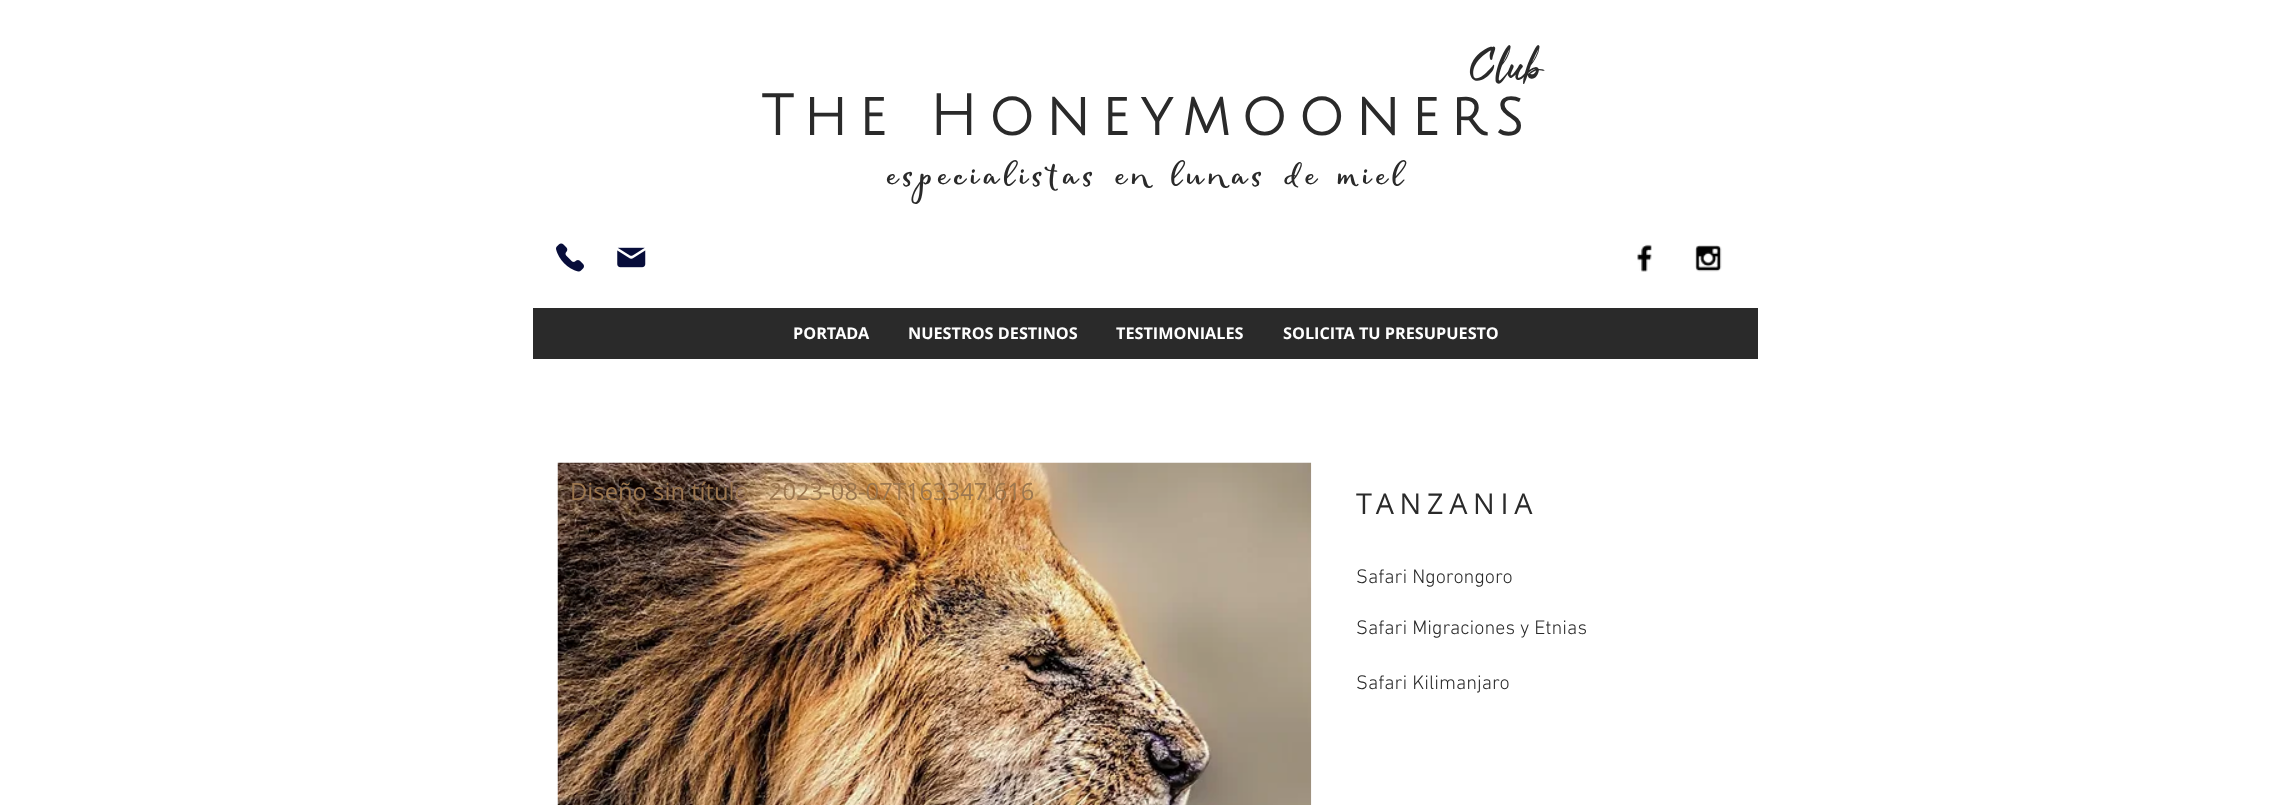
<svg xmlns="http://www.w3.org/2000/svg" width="2294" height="805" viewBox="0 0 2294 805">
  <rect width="100%" height="100%" fill="#fff"/>
  <image x="556" y="243" width="28" height="29" href="img/1.png"/>
  <image x="617" y="247" width="29" height="21" href="img/2.png"/>
  <image x="1637" y="244" width="15" height="28" href="img/3.png"/>
  <image x="1695" y="245" width="27" height="27" href="img/4.png"/>
  <path d="M533 308h1225v51H533z" fill="#2a2a2a"/>
  <image x="557" y="462" width="755" height="343" href="img/5.png"/>
  <text x="1470" y="79" font-family="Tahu" font-size="44" fill="#2a2a2a">Club</text>
  <text x="761" y="135" font-family="Julius Sans One" font-size="56.25" font-weight="bold" letter-spacing="11.25" fill="#2a2a2a">The Honeymooners</text>
  <text x="886" y="184" word-spacing="-0.5" font-family="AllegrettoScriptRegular" font-size="27.5" font-weight="bold" letter-spacing="5.5" fill="#2a2a2a">especialistas en lunas de miel</text>
  <g font-family="Open Sans" font-size="16.25" font-weight="bold" fill="#fff">
    <text x="793" y="339">PORTADA</text>
    <text x="908" y="339">NUESTROS DESTINOS</text>
    <text x="1116" y="339">TESTIMONIALES</text>
    <text x="1283" y="339">SOLICITA TU PRESUPUESTO</text>
  </g>
  <text x="570" y="500" font-family="Open Sans" font-size="23.75" fill="#9c774f">Diseño sin título - 2023-08-07T163347.616</text>
  <text x="1356" y="514" font-family="Open Sans" font-size="28.75" letter-spacing="5.75" fill="#2a2a2a">TANZANIA</text>
  <g font-family="'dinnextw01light'" font-size="20" font-weight="300" fill="#2a2a2a">
    <text x="1356" y="583">Safari Ngorongoro</text>
    <text x="1356" y="634">Safari Migraciones y Etnias</text>
    <text x="1356" y="689">Safari Kilimanjaro</text>
  </g>
</svg>
